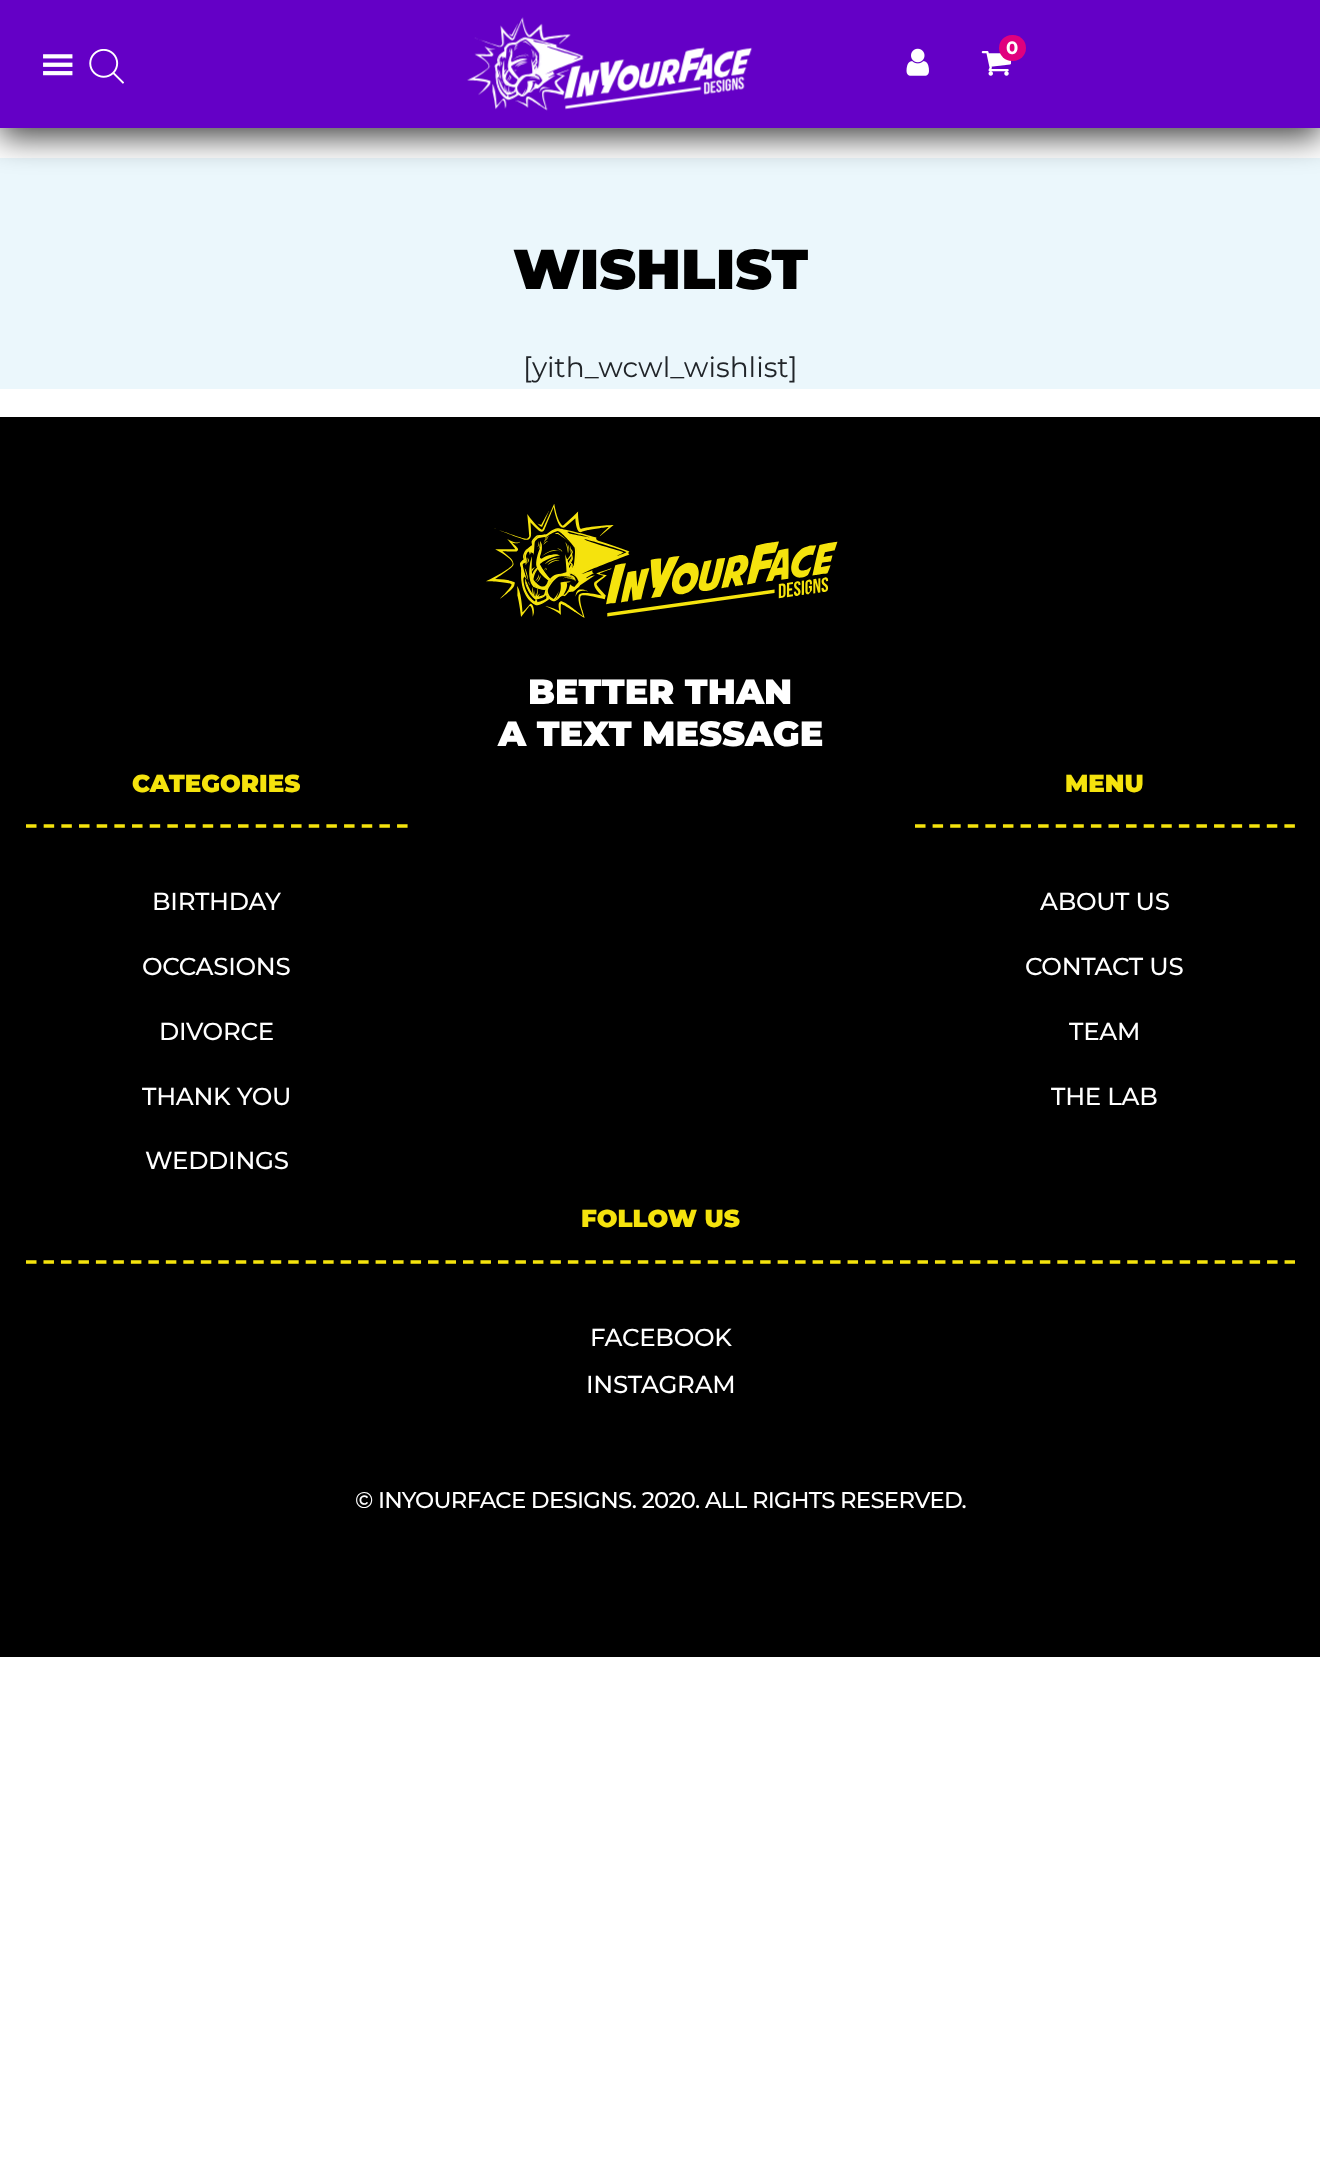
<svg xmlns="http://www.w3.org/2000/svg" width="1320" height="2165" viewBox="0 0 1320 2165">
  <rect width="100%" height="100%" fill="#fff"/>
  <path d="M0 158h1320v231H0z" fill="#ebf7fc"/>
  <path d="M0 9h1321v128H0z" fill="#000000bf" filter="blur(16px)"/>
  <path d="M0 0h1320v128H0z" fill="#6400c6"/>
  <image x="43" y="54" width="30" height="22" href="img/1.png"/>
  <image x="89" y="49" width="35" height="35" href="img/2.png"/>
  <image x="467" y="17" width="286" height="94" href="img/3.png"/>
  <image x="906" y="48" width="23" height="28" href="img/4.png"/>
  <image x="981" y="51" width="30" height="25" href="img/5.png"/>
  <rect x="999" y="35" width="27" height="26" rx="13" fill="#e0007e"/>
  <path d="M0 417h1320v1240H0z" fill="#000"/>
  <image x="486" y="504" width="352" height="114" href="img/6.png"/>
  <path d="M26 826H408" fill="none" stroke="#f5e30d" stroke-width="3.5" stroke-dasharray="10.5 7.17"/>
  <path d="M915 826H1295" fill="none" stroke="#f5e30d" stroke-width="3.5" stroke-dasharray="10.5 7.09"/>
  <path d="M26 1262H1295" fill="none" stroke="#f5e30d" stroke-width="3.5" stroke-dasharray="10.5 6.98"/>
  <text x="1006" y="54" font-family="Montserrat" font-size="18" font-weight="bold" fill="#fff">0</text>
  <text x="513" y="289" font-family="Montserrat" font-size="56" font-weight="900" fill="#000">WISHLIST</text>
  <text x="523" y="377" font-family="Montserrat" font-size="28" fill="#212529">[yith_wcwl_wishlist]</text>
  <g font-family="Montserrat" font-size="35" font-weight="900" fill="#fff">
    <text x="528" y="704">BETTER THAN</text>
    <text x="498" y="746">A TEXT MESSAGE</text>
  </g>
  <text x="132" y="792" font-family="Montserrat" font-size="24.5" font-weight="900" fill="#f5e30d">CATEGORIES</text>
  <g font-family="Montserrat" font-size="24.5" font-weight="500" letter-spacing="-0.25" fill="#fff">
    <text x="152" y="910">BIRTHDAY</text>
    <text x="142" y="975">OCCASIONS</text>
    <text x="159" y="1040">DIVORCE</text>
    <text x="142" y="1105">THANK YOU</text>
    <text x="145" y="1169">WEDDINGS</text>
  </g>
  <text x="1065" y="792" font-family="Montserrat" font-size="24.5" font-weight="900" fill="#f5e30d">MENU</text>
  <g font-family="Montserrat" font-size="24.5" font-weight="500" letter-spacing="-0.25" fill="#fff">
    <text x="1040" y="910">ABOUT US</text>
    <text x="1025" y="975">CONTACT US</text>
    <text x="1069" y="1040">TEAM</text>
    <text x="1051" y="1105">THE LAB</text>
  </g>
  <text x="581" y="1227" font-family="Montserrat" font-size="24.5" font-weight="900" fill="#f5e30d">FOLLOW US</text>
  <g font-family="Montserrat" font-size="24.5" font-weight="500" letter-spacing="-0.25" fill="#fff">
    <text x="590" y="1346">FACEBOOK</text>
    <text x="586" y="1393">INSTAGRAM</text>
  </g>
  <text x="355" y="1508" font-family="Montserrat" font-size="22.75" font-weight="500" letter-spacing="-0.7" fill="#fff">© INYOURFACE DESIGNS. 2020. ALL RIGHTS RESERVED.</text>
</svg>
